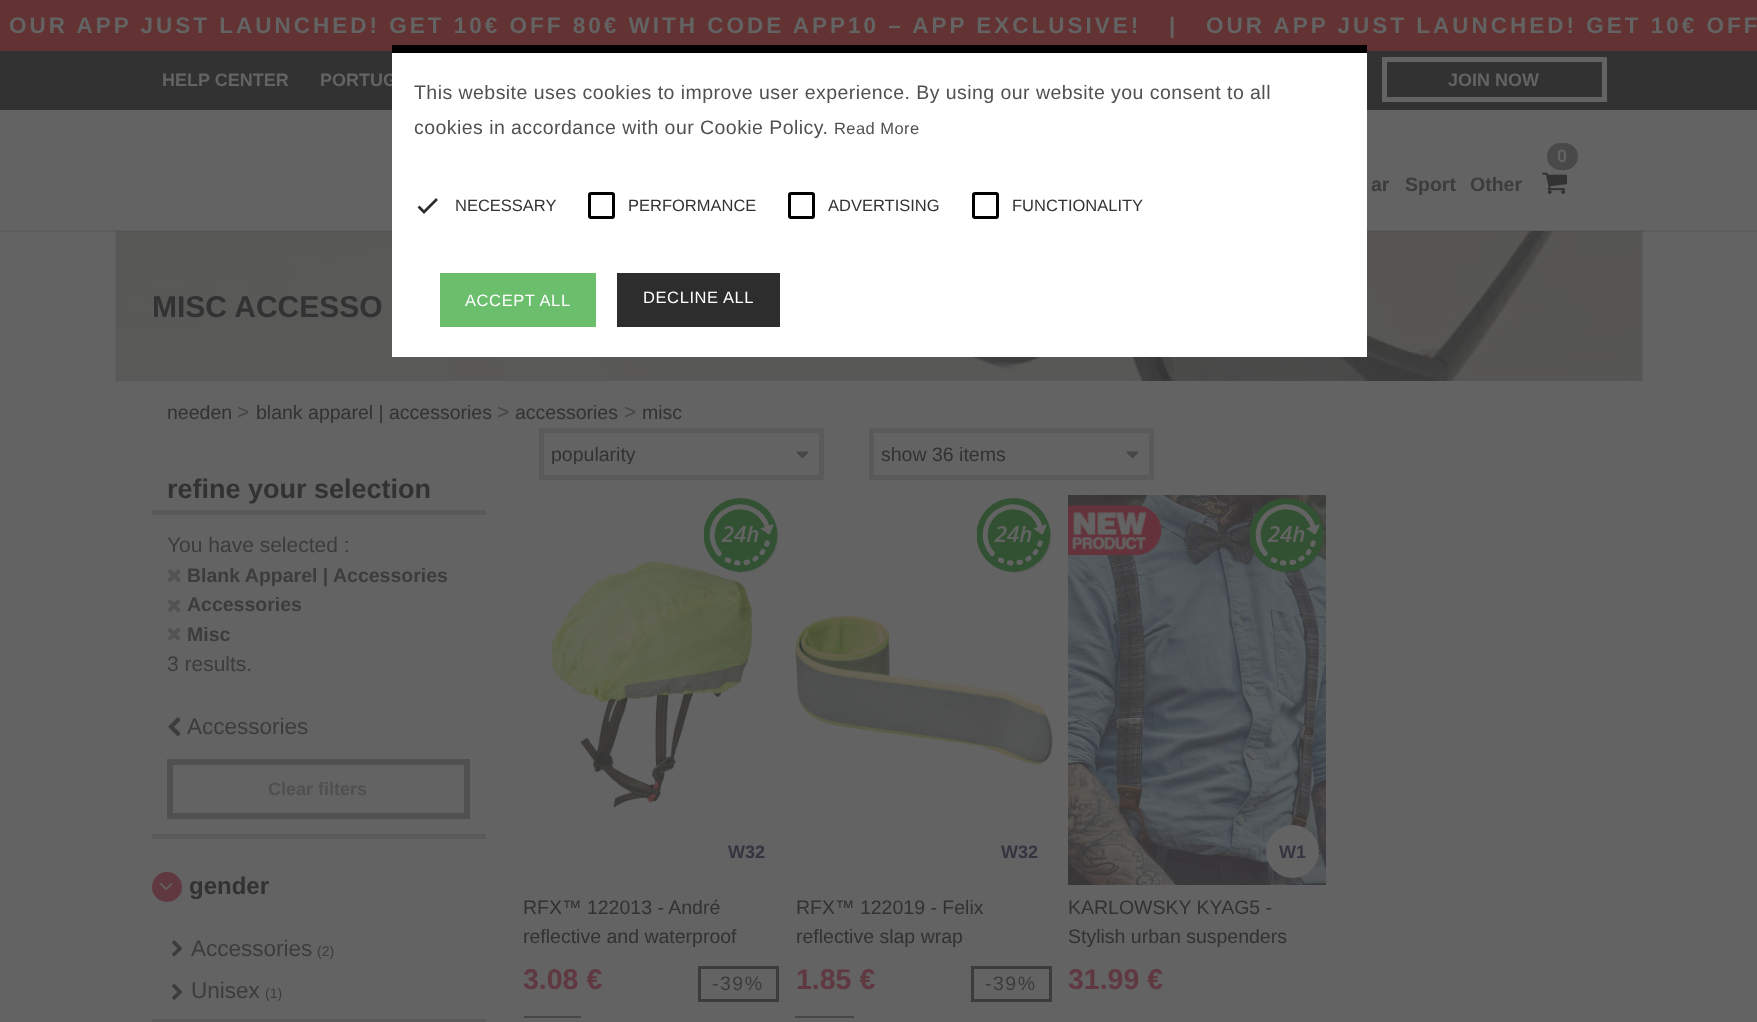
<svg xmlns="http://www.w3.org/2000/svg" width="1757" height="1022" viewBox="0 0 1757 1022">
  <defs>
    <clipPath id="clip1"><path d="M552 444h230v20H552z"/></clipPath>
  </defs>
  <rect width="100%" height="100%" fill="#636363"/>
  <path d="M0 0h1757v51H0z" fill="#633232"/>
  <path d="M0 51h1757v59H0z" fill="#323232"/>
  <path d="M1384.5 59.5h220v40H1384.5z" fill="none" stroke="#636363" stroke-width="5"/>
  <path d="M392 45h975v8H392z" fill="#000"/>
  <image x="115" y="231" width="1528" height="150" href="img/2.png"/>
  <path d="M0 230h1757v2H0z" fill="#3232321a"/>
  <rect x="1547" y="143" width="31" height="27" rx="13.5" fill="#494949"/>
  <image x="1542" y="172" width="26" height="22" href="img/1.png"/>
  <path d="M152 510h334v5H152z" fill="#5a5a5a"/>
  <image x="167" y="569" width="14" height="14" href="img/3.png"/>
  <image x="167" y="599" width="14" height="14" href="img/3.png"/>
  <image x="167" y="627" width="14" height="14" href="img/4.png"/>
  <image x="168" y="717" width="13" height="20" href="img/5.png"/>
  <path d="M170 762h297v54H170z" fill="none" stroke="#505050" stroke-width="6"/>
  <path d="M152 834h334v5H152z" fill="#5a5a5a"/>
  <circle cx="167" cy="887" r="15" fill="#5f3840"/>
  <image x="160" y="883" width="13" height="8" href="img/6.png"/>
  <image x="171" y="940" width="12" height="17" href="img/7.png"/>
  <image x="171" y="983" width="12" height="17" href="img/8.png"/>
  <path d="M152 1019h334v3H152z" fill="#5a5a5a"/>
  <path d="M541.5 430.5h280v47H541.5z" fill="none" stroke="#5a5a5a" stroke-width="5"/>
  <image x="796" y="451" width="13" height="8" href="img/9.png"/>
  <path d="M871.5 430.5h280v47H871.5z" fill="none" stroke="#5a5a5a" stroke-width="5"/>
  <image x="1126" y="451" width="13" height="8" href="img/9.png"/>
  <image x="551" y="561" width="205" height="248" href="img/11.png"/>
  <image x="704" y="498" width="74" height="75" href="img/10.png"/>
  <path d="M524 1016h57v2H524z" fill="#464646"/>
  <path d="M699.5 967.5h78v33H699.5z" fill="none" stroke="#3c3c3c" stroke-width="3"/>
  <image x="977" y="498" width="74" height="75" href="img/12.png"/>
  <image x="795" y="614" width="258" height="153" href="img/13.png"/>
  <path d="M795 1016h59v2H795z" fill="#464646"/>
  <path d="M972.5 967.5h78v33H972.5z" fill="none" stroke="#3c3c3c" stroke-width="3"/>
  <image x="1068" y="495" width="258" height="390" href="img/16.png"/>
  <image x="1068" y="505" width="94" height="50" href="img/14.png"/>
  <image x="1250" y="498" width="74" height="75" href="img/15.png"/>
  <circle cx="1292.5" cy="851.5" r="26.5" fill="#636363"/>
  <g font-family="Liberation Sans" font-size="22.5" font-weight="bold" letter-spacing="3" fill="#636363">
    <text x="9" y="33">OUR APP JUST LAUNCHED! GET 10€ OFF 80€ WITH CODE APP10 – APP EXCLUSIVE!</text>
    <text x="1169" y="33">|</text>
    <text x="1206" y="33">OUR APP JUST LAUNCHED! GET 10€ OFF</text>
  </g>
  <g font-family="Liberation Sans" font-size="18" font-weight="bold" fill="#636363">
    <text x="162" y="86">HELP CENTER</text>
    <text x="320" y="86">PORTUG</text>
    <text x="1448" y="86">JOIN NOW</text>
  </g>
  <path d="M392 53h975v304H392z" fill="#fff"/>
  <g font-family="Liberation Sans" font-size="19.5" letter-spacing="0.45" fill="#505050">
    <text x="414" y="99">This website uses cookies to improve user experience. By using our website you consent to all</text>
    <text x="414" y="134">cookies in accordance with our Cookie Policy.</text>
  </g>
  <text x="834" y="134" font-family="Liberation Sans" font-size="16.5" letter-spacing="0.45" fill="#505050">Read More</text>
  <path d="M418.5 206.5L424 212L437 199" fill="none" stroke="#2d2d2d" stroke-width="2.7"/>
  <text x="455" y="211" font-family="Liberation Sans" font-size="16.5" fill="#323232">NECESSARY</text>
  <rect x="589.5" y="193.5" width="24" height="24" rx="1.5" fill="none" stroke="#000" stroke-width="3"/>
  <text x="628" y="211" font-family="Liberation Sans" font-size="16.5" fill="#323232">PERFORMANCE</text>
  <rect x="789.5" y="193.5" width="24" height="24" rx="1.5" fill="none" stroke="#000" stroke-width="3"/>
  <text x="828" y="211" font-family="Liberation Sans" font-size="16.5" fill="#323232">ADVERTISING</text>
  <rect x="973.5" y="193.5" width="24" height="24" rx="1.5" fill="none" stroke="#000" stroke-width="3"/>
  <text x="1012" y="211" font-family="Liberation Sans" font-size="16.5" fill="#323232">FUNCTIONALITY</text>
  <path d="M440 273h156v54H440z" fill="#6bbe6b"/>
  <text x="465" y="306" font-family="Liberation Sans" font-size="16.5" letter-spacing="0.6" fill="#fff">ACCEPT ALL</text>
  <path d="M617 273h163v54H617z" fill="#2d2d2d"/>
  <text x="643" y="303" font-family="Liberation Sans" font-size="16.5" letter-spacing="0.6" fill="#fff">DECLINE ALL</text>
  <text x="1557" y="162" font-family="Liberation Sans" font-size="18" font-weight="bold" fill="#636363">0</text>
  <g font-family="Liberation Sans" font-size="19.5" font-weight="bold" fill="#3c3c3c">
    <text x="1371" y="191">ar</text>
    <text x="1405" y="191">Sport</text>
    <text x="1470" y="191">Other</text>
  </g>
  <text x="152" y="317" font-family="Liberation Sans" font-size="30" font-weight="bold" fill="#323232">MISC ACCESSO</text>
  <text x="167" y="419" font-family="Liberation Sans" font-size="19.5" fill="#323232">needen</text>
  <text x="237" y="419" font-family="Liberation Sans" font-size="21" fill="#464646">&gt;</text>
  <text x="256" y="419" font-family="Liberation Sans" font-size="19.5" fill="#323232">blank apparel | accessories</text>
  <text x="497" y="419" font-family="Liberation Sans" font-size="21" fill="#464646">&gt;</text>
  <text x="515" y="419" font-family="Liberation Sans" font-size="19.5" fill="#323232">accessories</text>
  <text x="624" y="419" font-family="Liberation Sans" font-size="21" fill="#464646">&gt;</text>
  <text x="642" y="419" font-family="Liberation Sans" font-size="19.5" fill="#323232">misc</text>
  <text x="167" y="498" font-family="Liberation Sans" font-size="27" font-weight="bold" fill="#323232">refine your selection</text>
  <text x="167" y="552" font-family="Liberation Sans" font-size="21" fill="#3c3c3c">You have selected :</text>
  <g font-family="Liberation Sans" font-size="19.5" font-weight="bold" fill="#3c3c3c">
    <text x="187" y="582">Blank Apparel | Accessories</text>
    <text x="187" y="611">Accessories</text>
    <text x="187" y="641">Misc</text>
  </g>
  <text x="167" y="671" font-family="Liberation Sans" font-size="21" fill="#3c3c3c">3 results.</text>
  <text x="187" y="734" font-family="Liberation Sans" font-size="22.5" fill="#3c3c3c">Accessories</text>
  <text x="268" y="795" font-family="Liberation Sans" font-size="18" font-weight="bold" fill="#505050">Clear filters</text>
  <text x="189" y="894" font-family="Liberation Sans" font-size="24" font-weight="bold" fill="#323232">gender</text>
  <text x="191" y="956" font-family="Liberation Sans" font-size="22.5" fill="#3c3c3c">Accessories</text>
  <text x="317" y="956" font-family="Liberation Sans" font-size="14" fill="#3c3c3c">(2)</text>
  <text x="191" y="998" font-family="Liberation Sans" font-size="22.5" fill="#3c3c3c">Unisex</text>
  <text x="265" y="998" font-family="Liberation Sans" font-size="14" fill="#3c3c3c">(1)</text>
  <g clip-path="url(#clip1)">
    <text x="551" y="461" font-family="Liberation Sans" font-size="19.5" fill="#323232">popularity</text>
  </g>
  <text x="881" y="461" font-family="Liberation Sans" font-size="19.5" fill="#323232">show 36 items</text>
  <text x="728" y="858" font-family="Liberation Sans" font-size="18" font-weight="bold" fill="#353441">W32</text>
  <g font-family="Liberation Sans" font-size="19.5" fill="#323232">
    <text x="523" y="914">RFX™ 122013 - André</text>
    <text x="523" y="943">reflective and waterproof</text>
  </g>
  <text x="523" y="989" font-family="Liberation Sans" font-size="28.5" font-weight="bold" fill="#5f3840">3.08 €</text>
  <text x="712" y="990" font-family="Liberation Sans" font-size="19.5" letter-spacing="1.5" fill="#3c3c3c">-39%</text>
  <text x="1001" y="858" font-family="Liberation Sans" font-size="18" font-weight="bold" fill="#353441">W32</text>
  <g font-family="Liberation Sans" font-size="19.5" fill="#323232">
    <text x="796" y="914">RFX™ 122019 - Felix</text>
    <text x="796" y="943">reflective slap wrap</text>
  </g>
  <text x="796" y="989" font-family="Liberation Sans" font-size="28.5" font-weight="bold" fill="#5f3840">1.85 €</text>
  <text x="985" y="990" font-family="Liberation Sans" font-size="19.5" letter-spacing="1.5" fill="#3c3c3c">-39%</text>
  <text x="1279" y="858" font-family="Liberation Sans" font-size="18" font-weight="bold" fill="#353441">W1</text>
  <g font-family="Liberation Sans" font-size="19.5" fill="#323232">
    <text x="1068" y="914">KARLOWSKY KYAG5 -</text>
    <text x="1068" y="943">Stylish urban suspenders</text>
  </g>
  <text x="1068" y="989" font-family="Liberation Sans" font-size="28.5" font-weight="bold" fill="#5f3840">31.99 €</text>
</svg>
